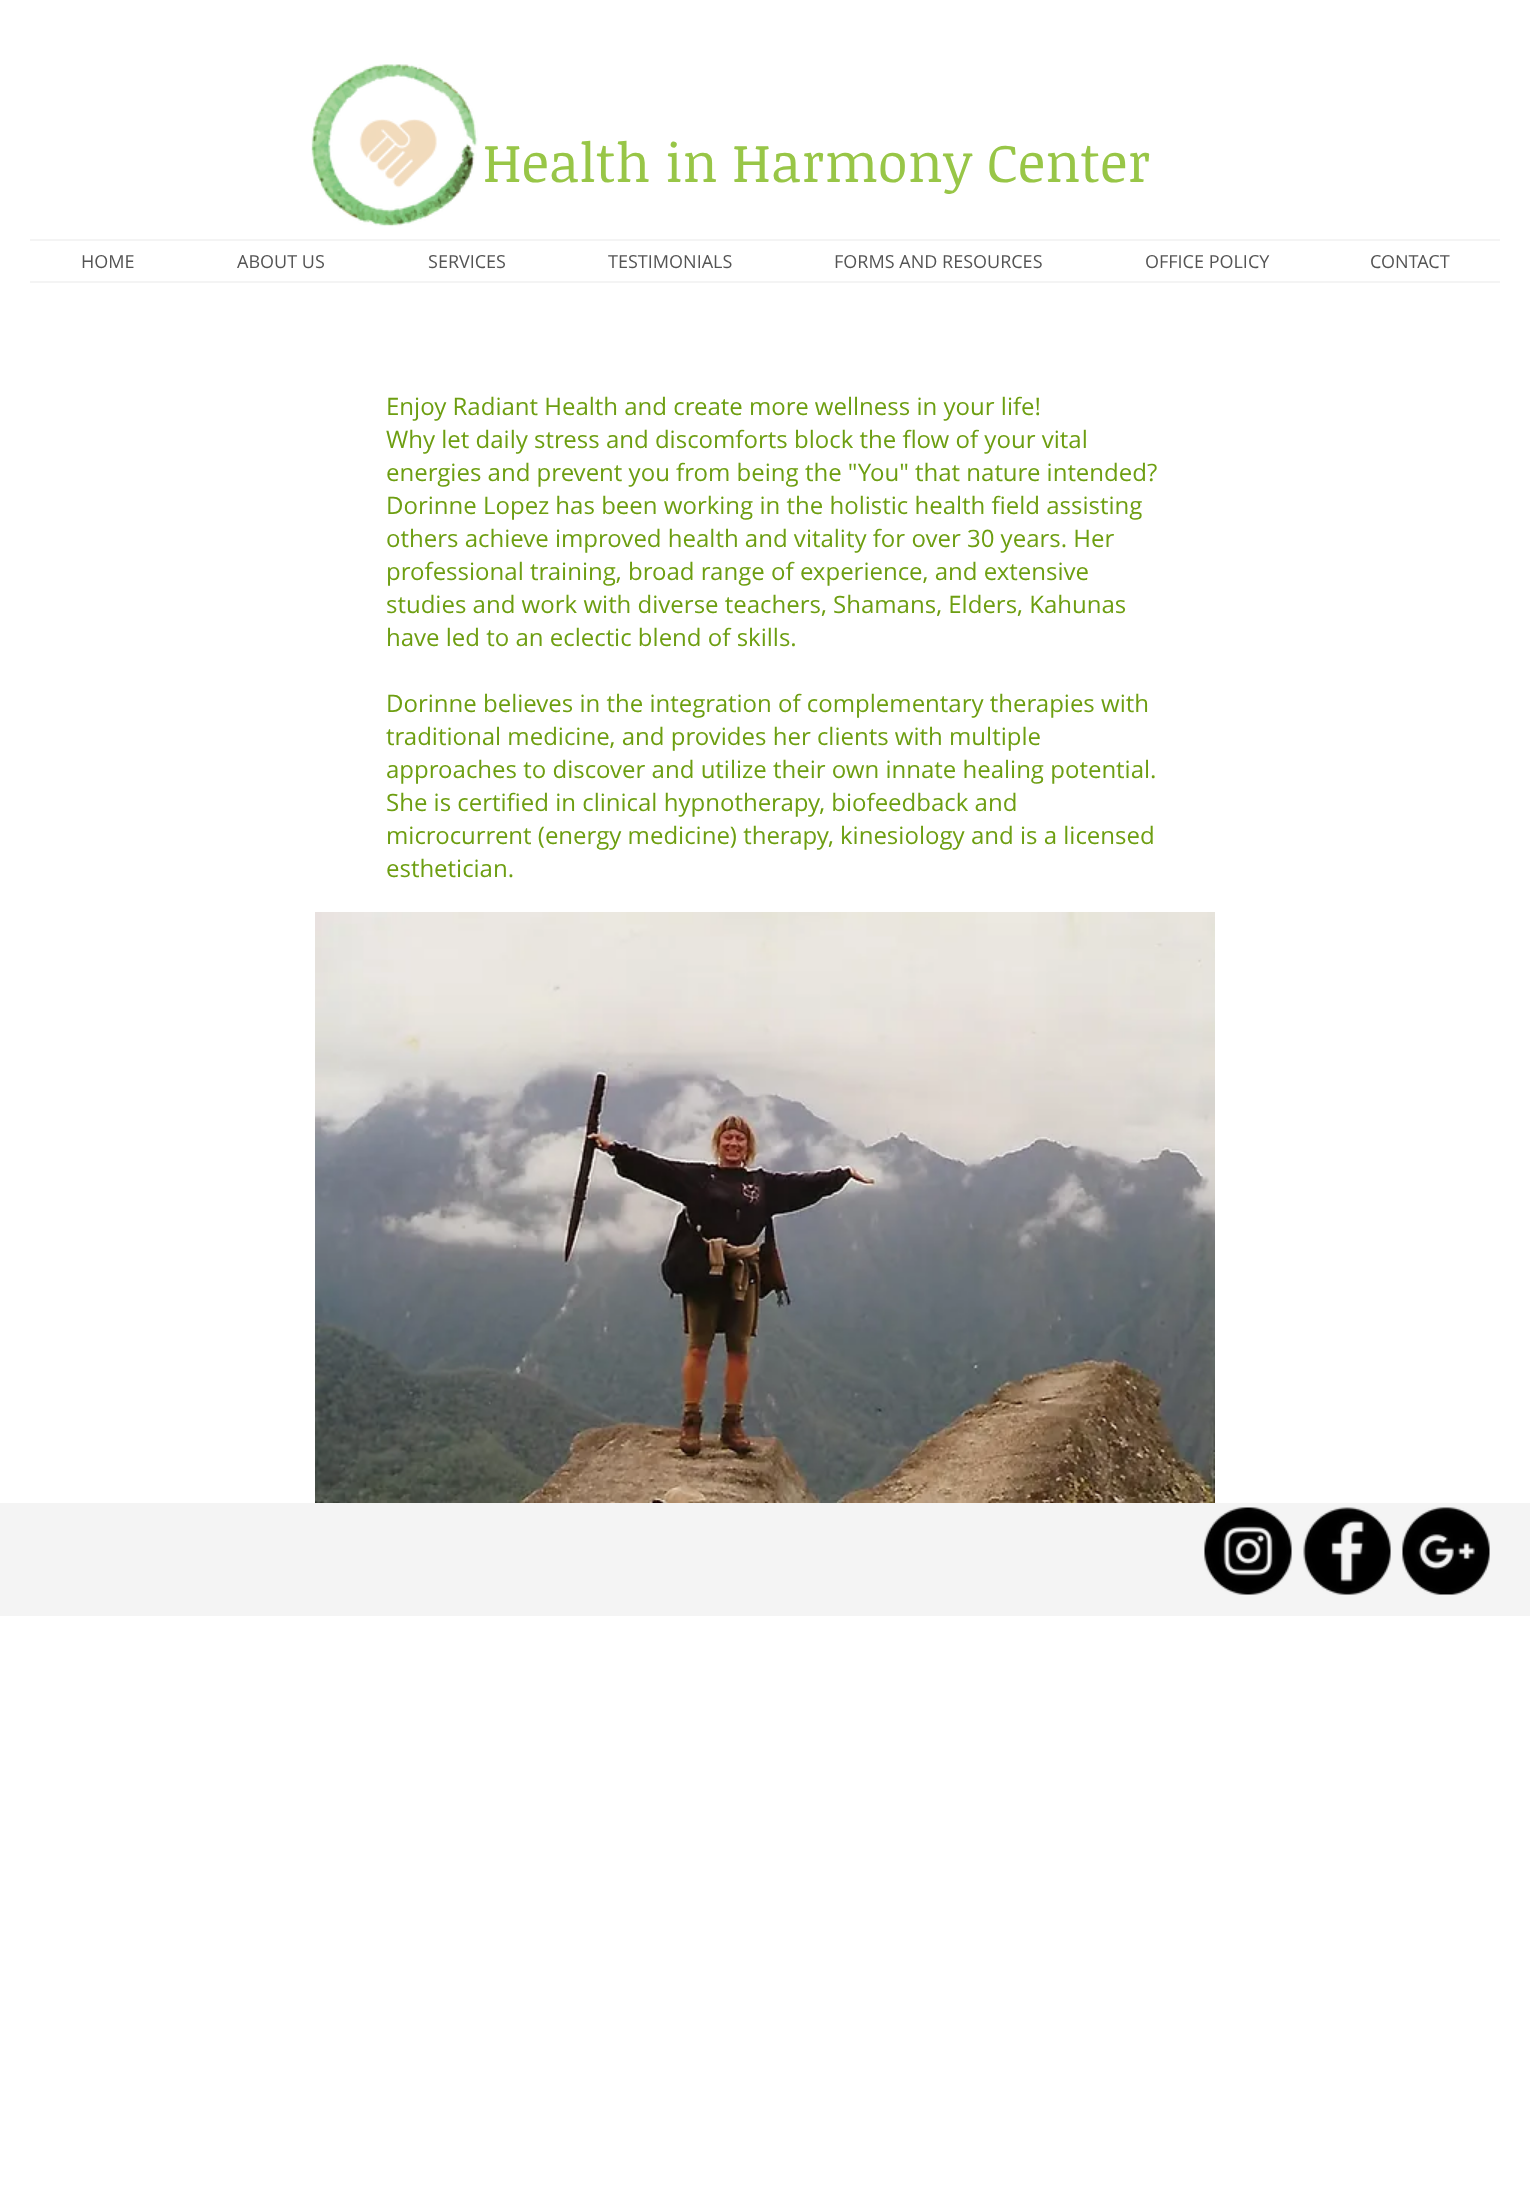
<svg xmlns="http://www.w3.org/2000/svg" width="1530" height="2211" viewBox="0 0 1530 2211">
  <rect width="100%" height="100%" fill="#fff"/>
  <image x="311" y="64" width="167" height="163" href="img/1.png"/>
  <image x="359" y="119" width="78" height="69" href="img/2.png"/>
  <path d="M30 239h1470v2H30z" fill="#f4f4f4"/>
  <path d="M30 281h1470v2H30z" fill="#f4f4f4"/>
  <image x="315" y="912" width="900" height="591" href="img/3.png"/>
  <path d="M0 1503h1530v113H0z" fill="#f4f4f4"/>
  <image x="1204" y="1507" width="88" height="88" href="img/4.png"/>
  <image x="1303" y="1507" width="88" height="88" href="img/5.png"/>
  <image x="1402" y="1507" width="88" height="88" href="img/6.png"/>
  <text x="483" y="182" font-family="Noticia Text" font-size="54" fill="#98c647">Health in Harmony Center</text>
  <g font-family="Open Sans" font-size="18" fill="#545454">
    <text x="81" y="268">HOME</text>
    <text x="237" y="268">ABOUT US</text>
    <text x="428" y="268">SERVICES</text>
    <text x="608" y="268">TESTIMONIALS</text>
    <text x="834" y="268">FORMS AND RESOURCES</text>
    <text x="1145" y="268">OFFICE POLICY</text>
    <text x="1370" y="268">CONTACT</text>
  </g>
  <g font-family="Open Sans" font-size="24" fill="#6d9e11">
    <text x="386" y="415">Enjoy Radiant Health and create more wellness in your life!</text>
    <text x="386" y="448">Why let daily stress and discomforts block the flow of your vital</text>
    <text x="386" y="481">energies and prevent you from being the "You" that nature intended?</text>
    <text x="386" y="514">Dorinne Lopez has been working in the holistic health field assisting</text>
    <text x="386" y="547">others achieve improved health and vitality for over 30 years. Her</text>
    <text x="386" y="580">professional training, broad range of experience, and extensive</text>
    <text x="386" y="613">studies and work with diverse teachers, Shamans, Elders, Kahunas</text>
    <text x="386" y="646">have led to an eclectic blend of skills.</text>
    <text x="386" y="712">Dorinne believes in the integration of complementary therapies with</text>
    <text x="386" y="745">traditional medicine, and provides her clients with multiple</text>
    <text x="386" y="778">approaches to discover and utilize their own innate healing potential.</text>
    <text x="386" y="811">She is certified in clinical hypnotherapy, biofeedback and</text>
    <text x="386" y="844">microcurrent (energy medicine) therapy, kinesiology and is a licensed</text>
    <text x="386" y="877">esthetician.</text>
  </g>
</svg>
